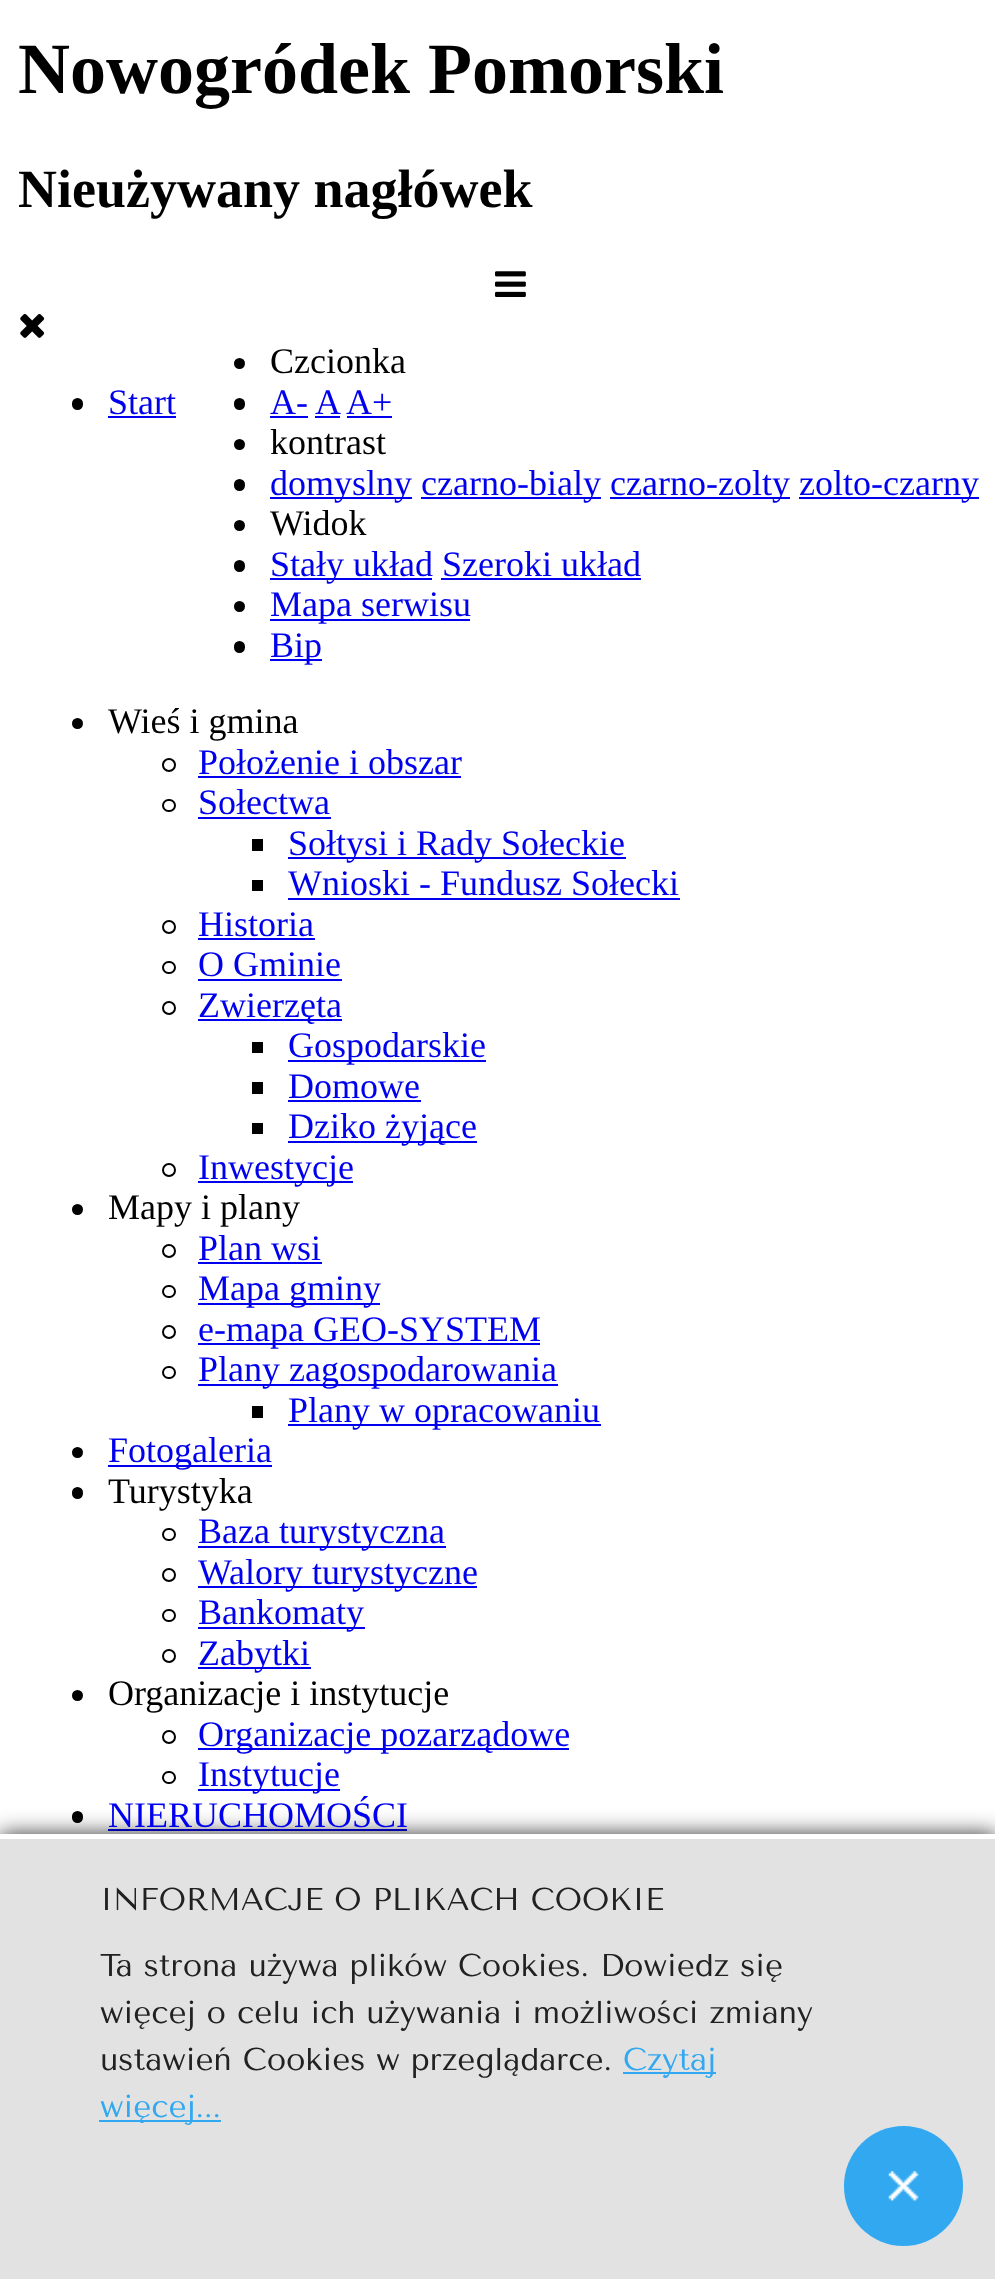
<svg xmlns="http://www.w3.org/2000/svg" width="995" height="2279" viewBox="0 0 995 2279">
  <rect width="100%" height="100%" fill="#fff"/>
  <circle cx="239.5" cy="363.5" r="5.5" fill="#000"/>
  <rect x="234" y="398" width="11" height="12" rx="5.5" fill="#000"/>
  <path d="M270 416h38v2H270z" fill="#00e"/>
  <path d="M315 416h25v2H315z" fill="#00e"/>
  <path d="M347 416h45v2H347z" fill="#00e"/>
  <circle cx="239.5" cy="444.5" r="5.5" fill="#000"/>
  <rect x="234" y="479" width="11" height="12" rx="5.5" fill="#000"/>
  <path d="M270 497h142v2H270z" fill="#00e"/>
  <path d="M421 497h180v2H421z" fill="#00e"/>
  <path d="M610 497h180v2H610z" fill="#00e"/>
  <path d="M799 497h180v2H799z" fill="#00e"/>
  <circle cx="239.5" cy="525.5" r="5.5" fill="#000"/>
  <rect x="234" y="560" width="11" height="12" rx="5.5" fill="#000"/>
  <path d="M270 578h162v2H270z" fill="#00e"/>
  <path d="M441 578h200v2H441z" fill="#00e"/>
  <circle cx="239.5" cy="606.5" r="5.5" fill="#000"/>
  <path d="M270 619h200v2H270z" fill="#00e"/>
  <rect x="234" y="641" width="11" height="12" rx="5.5" fill="#000"/>
  <path d="M270 659h52v2H270z" fill="#00e"/>
  <image x="495" y="271" width="31" height="26" href="img/1.png"/>
  <image x="20" y="314" width="25" height="24" href="img/2.png"/>
  <rect x="72" y="398" width="11" height="12" rx="5.5" fill="#000"/>
  <path d="M108 416h68v2H108z" fill="#00e"/>
  <circle cx="77.5" cy="723.5" r="5.5" fill="#000"/>
  <circle cx="169" cy="765" r="6" fill="none" stroke="#000" stroke-width="2"/>
  <path d="M198 776h263v2H198z" fill="#00e"/>
  <rect x="163" y="800" width="12" height="11" rx="5.5" fill="none" stroke="#000" stroke-width="2"/>
  <path d="M198 817h133v2H198z" fill="#00e"/>
  <path d="M252 839h11v12H252z" fill="#000"/>
  <path d="M288 857h338v2H288z" fill="#00e"/>
  <path d="M252 880h11v11H252z" fill="#000"/>
  <path d="M288 898h392v2H288z" fill="#00e"/>
  <circle cx="169" cy="927" r="6" fill="none" stroke="#000" stroke-width="2"/>
  <path d="M198 938h117v2H198z" fill="#00e"/>
  <rect x="163" y="962" width="12" height="11" rx="5.5" fill="none" stroke="#000" stroke-width="2"/>
  <path d="M198 979h144v2H198z" fill="#00e"/>
  <circle cx="169" cy="1008" r="6" fill="none" stroke="#000" stroke-width="2"/>
  <path d="M198 1019h144v2H198z" fill="#00e"/>
  <path d="M252 1042h11v11H252z" fill="#000"/>
  <path d="M288 1060h198v2H288z" fill="#00e"/>
  <path d="M252 1082h11v12H252z" fill="#000"/>
  <path d="M288 1100h133v2H288z" fill="#00e"/>
  <path d="M252 1123h11v11H252z" fill="#000"/>
  <path d="M288 1141h189v2H288z" fill="#00e"/>
  <circle cx="169" cy="1170" r="6" fill="none" stroke="#000" stroke-width="2"/>
  <path d="M198 1181h155v2H198z" fill="#00e"/>
  <circle cx="77.5" cy="1209.5" r="5.5" fill="#000"/>
  <circle cx="169" cy="1251" r="6" fill="none" stroke="#000" stroke-width="2"/>
  <path d="M198 1262h124v2H198z" fill="#00e"/>
  <rect x="163" y="1286" width="12" height="11" rx="5.5" fill="none" stroke="#000" stroke-width="2"/>
  <path d="M198 1303h182v2H198z" fill="#00e"/>
  <circle cx="169" cy="1332" r="6" fill="none" stroke="#000" stroke-width="2"/>
  <path d="M198 1343h342v2H198z" fill="#00e"/>
  <rect x="163" y="1367" width="12" height="11" rx="5.5" fill="none" stroke="#000" stroke-width="2"/>
  <path d="M198 1384h360v2H198z" fill="#00e"/>
  <path d="M252 1406h11v12H252z" fill="#000"/>
  <path d="M288 1424h313v2H288z" fill="#00e"/>
  <circle cx="77.5" cy="1452.5" r="5.5" fill="#000"/>
  <path d="M108 1465h164v2H108z" fill="#00e"/>
  <rect x="72" y="1487" width="11" height="12" rx="5.5" fill="#000"/>
  <rect x="163" y="1529" width="12" height="11" rx="5.5" fill="none" stroke="#000" stroke-width="2"/>
  <path d="M198 1546h248v2H198z" fill="#00e"/>
  <circle cx="169" cy="1575" r="6" fill="none" stroke="#000" stroke-width="2"/>
  <path d="M198 1586h279v2H198z" fill="#00e"/>
  <rect x="163" y="1610" width="12" height="11" rx="5.5" fill="none" stroke="#000" stroke-width="2"/>
  <path d="M198 1627h167v2H198z" fill="#00e"/>
  <circle cx="169" cy="1656" r="6" fill="none" stroke="#000" stroke-width="2"/>
  <path d="M198 1667h113v2H198z" fill="#00e"/>
  <circle cx="77.5" cy="1695.5" r="5.5" fill="#000"/>
  <circle cx="169" cy="1737" r="6" fill="none" stroke="#000" stroke-width="2"/>
  <path d="M198 1748h371v2H198z" fill="#00e"/>
  <rect x="163" y="1772" width="12" height="11" rx="5.5" fill="none" stroke="#000" stroke-width="2"/>
  <path d="M198 1789h142v2H198z" fill="#00e"/>
  <rect x="72" y="1811" width="11" height="12" rx="5.5" fill="#000"/>
  <path d="M108 1829h299v2H108z" fill="#00e"/>
  <path d="M0 1834h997v445H0z" fill="#000000cc" filter="blur(11px)"/>
  <path d="M0 1839h995v440H0z" fill="#e2e2e2"/>
  <path d="M0 1834h995v5H0z" fill="#fff"/>
  <path d="M623 2072h93v2H623z" fill="#31a8f0"/>
  <path d="M99 2120h122v2H99z" fill="#31a8f0"/>
  <rect x="844" y="2126" width="119" height="120" rx="59.5" fill="#31a8f0"/>
  <image x="888" y="2171" width="31" height="31" href="img/3.png"/>
  <text x="18" y="93" font-family="Liberation Serif" font-size="72" font-weight="bold" fill="#000">Nowogródek Pomorski</text>
  <text x="18" y="207" font-family="Liberation Serif" font-size="54" font-weight="bold" fill="#000">Nieużywany nagłówek</text>
  <text x="270" y="373" font-family="Liberation Serif" font-size="36" fill="#000">Czcionka</text>
  <g font-family="Liberation Serif" font-size="36" fill="#00e">
    <text x="270" y="414">A-</text>
    <text x="315" y="414">A</text>
    <text x="346" y="414">A+</text>
  </g>
  <text x="270" y="454" font-family="Liberation Serif" font-size="36" fill="#000">kontrast</text>
  <g font-family="Liberation Serif" font-size="36" fill="#00e">
    <text x="270" y="495">domyslny</text>
    <text x="421" y="495">czarno-bialy</text>
    <text x="610" y="495">czarno-zolty</text>
    <text x="799" y="495">zolto-czarny</text>
  </g>
  <text x="270" y="535" font-family="Liberation Serif" font-size="36" fill="#000">Widok</text>
  <g font-family="Liberation Serif" font-size="36" fill="#00e">
    <text x="270" y="576">Stały układ Szeroki układ</text>
    <text x="270" y="616">Mapa serwisu</text>
    <text x="270" y="657">Bip</text>
    <text x="108" y="414">Start</text>
  </g>
  <text x="108" y="733" font-family="Liberation Serif" font-size="36" fill="#000">Wieś i gmina</text>
  <g font-family="Liberation Serif" font-size="36" fill="#00e">
    <text x="198" y="774">Położenie i obszar</text>
    <text x="198" y="814">Sołectwa</text>
    <text x="288" y="855">Sołtysi i Rady Sołeckie</text>
    <text x="288" y="895">Wnioski - Fundusz Sołecki</text>
    <text x="198" y="936">Historia</text>
    <text x="198" y="976">O Gminie</text>
    <text x="198" y="1017">Zwierzęta</text>
    <text x="288" y="1057">Gospodarskie</text>
    <text x="288" y="1098">Domowe</text>
    <text x="288" y="1138">Dziko żyjące</text>
    <text x="198" y="1179">Inwestycje</text>
  </g>
  <text x="108" y="1219" font-family="Liberation Serif" font-size="36" fill="#000">Mapy i plany</text>
  <g font-family="Liberation Serif" font-size="36" fill="#00e">
    <text x="198" y="1260">Plan wsi</text>
    <text x="198" y="1300">Mapa gminy</text>
    <text x="198" y="1341">e-mapa GEO-SYSTEM</text>
    <text x="198" y="1381">Plany zagospodarowania</text>
    <text x="288" y="1422">Plany w opracowaniu</text>
    <text x="108" y="1462">Fotogaleria</text>
  </g>
  <text x="108" y="1503" font-family="Liberation Serif" font-size="36" fill="#000">Turystyka</text>
  <g font-family="Liberation Serif" font-size="36" fill="#00e">
    <text x="198" y="1543">Baza turystyczna</text>
    <text x="198" y="1584">Walory turystyczne</text>
    <text x="198" y="1624">Bankomaty</text>
    <text x="198" y="1665">Zabytki</text>
  </g>
  <text x="108" y="1705" font-family="Liberation Serif" font-size="36" fill="#000">Organizacje i instytucje</text>
  <g font-family="Liberation Serif" font-size="36" fill="#00e">
    <text x="198" y="1746">Organizacje pozarządowe</text>
    <text x="198" y="1786">Instytucje</text>
    <text x="108" y="1827">NIERUCHOMOŚCI</text>
  </g>
  <g font-family="Tenor Sans" font-size="31.5" fill="#212121">
    <text x="100" y="1910">INFORMACJE O PLIKACH COOKIE</text>
    <text x="100" y="1976">Ta strona używa plików Cookies. Dowiedz się</text>
    <text x="100" y="2023">więcej o celu ich używania i możliwości zmiany</text>
    <text x="100" y="2070">ustawień Cookies w przeglądarce.</text>
  </g>
  <g font-family="Tenor Sans" font-size="31.5" fill="#31a8f0">
    <text x="623" y="2070">Czytaj</text>
    <text x="100" y="2117">więcej...</text>
  </g>
</svg>
